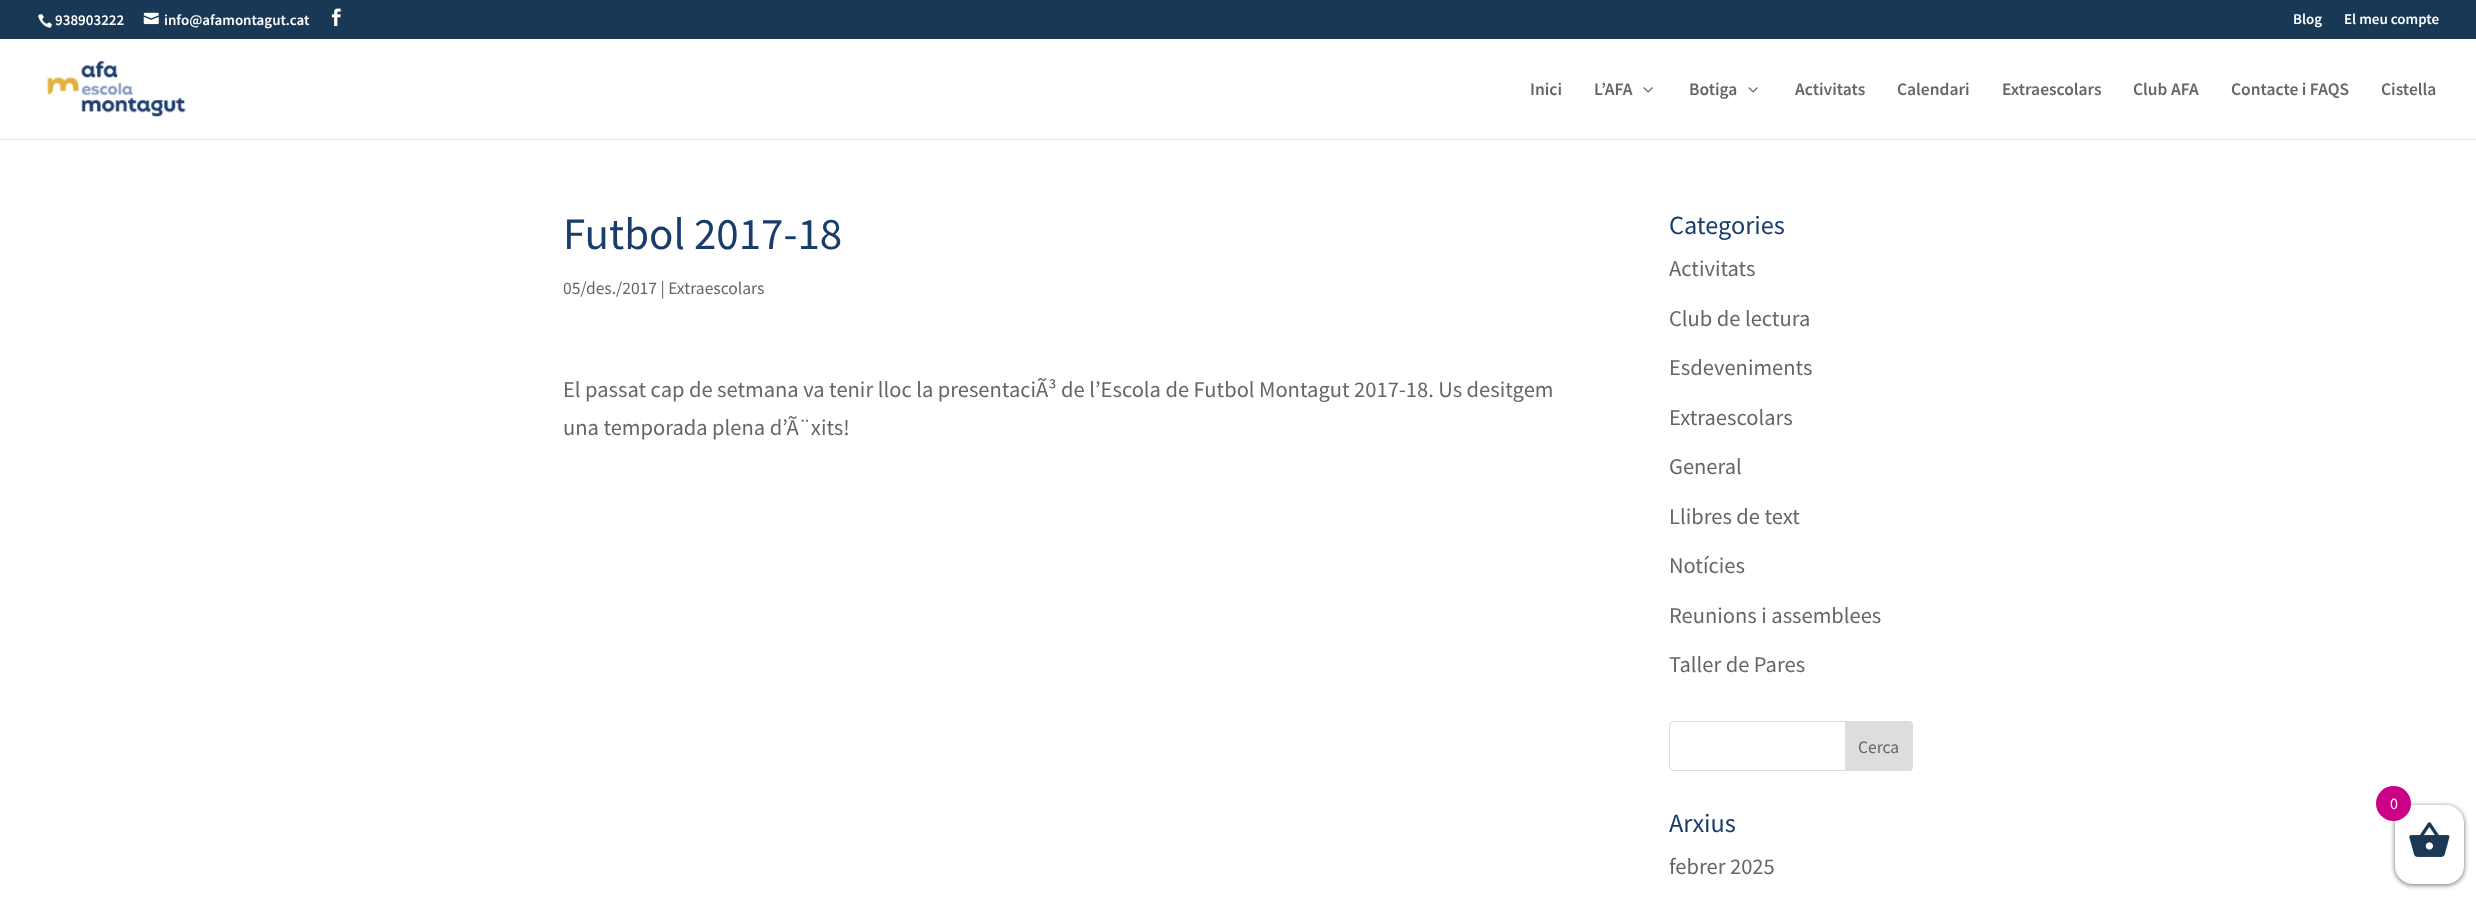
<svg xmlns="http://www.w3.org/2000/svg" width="2476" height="911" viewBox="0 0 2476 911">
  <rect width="100%" height="100%" fill="#fff"/>
  <path d="M0 0h2476v39H0z" fill="#193856"/>
  <image x="38" y="14" width="14" height="14" href="img/1.png"/>
  <image x="143" y="12" width="16" height="13" href="img/2.png"/>
  <image x="331" y="8" width="10" height="19" href="img/3.png"/>
  <path d="M0 139h2476v1H0z" fill="#e6e6e6"/>
  <image x="47" y="61" width="139" height="56" href="img/4.png"/>
  <image x="1643" y="87" width="10" height="6" href="img/5.png"/>
  <image x="1748" y="87" width="10" height="6" href="img/5.png"/>
  <rect x="1669.5" y="721.5" width="243" height="49" rx="3.5" fill="none" stroke="#ddd"/>
  <path d="M1845.5 721.5H1909C1911 721.5 1912.5 723 1912.5 725V767C1912.5 769 1911 770.5 1909 770.5H1845.5Z" fill="#ddd" stroke="#ddd"/>
  <rect x="2395" y="806" width="69" height="79" rx="18" fill="#666" filter="blur(2.5px)"/>
  <rect x="2395" y="805" width="69" height="79" rx="18" fill="#fff"/>
  <circle cx="2393.5" cy="803.5" r="17.5" fill="#cc0086"/>
  <image x="2409" y="822" width="41" height="35" href="img/6.png"/>
  <g font-family="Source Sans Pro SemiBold" font-size="15" font-weight="600" fill="#fff">
    <text x="55" y="25">938903222</text>
    <text x="164" y="25">info@afamontagut.cat</text>
    <text x="2293" y="24">Blog</text>
    <text x="2344" y="24">El meu compte</text>
  </g>
  <g font-family="Source Sans Pro SemiBold" font-size="17.5" font-weight="600" fill="#666">
    <text x="1530" y="95">Inici</text>
    <text x="1594" y="95">L’AFA</text>
    <text x="1689" y="95">Botiga</text>
    <text x="1795" y="95">Activitats</text>
    <text x="1897" y="95">Calendari</text>
    <text x="2002" y="95">Extraescolars</text>
    <text x="2133" y="95">Club AFA</text>
    <text x="2231" y="95">Contacte i FAQS</text>
    <text x="2381" y="95">Cistella</text>
  </g>
  <text x="563" y="249" font-family="Source Sans Pro" font-size="45" fill="#193c6a">Futbol 2017-18</text>
  <text x="563" y="294" font-family="Source Sans Pro" font-size="17.5" fill="#666">05/des./2017 | Extraescolars</text>
  <g font-family="Source Sans Pro" font-size="22.5" fill="#666">
    <text x="563" y="397">El passat cap de setmana va tenir lloc la presentaciÃ³ de l’Escola de Futbol Montagut 2017-18. Us desitgem</text>
    <text x="563" y="435">una temporada plena d’Ã¨xits!</text>
  </g>
  <text x="1669" y="234" font-family="Source Sans Pro" font-size="26.25" fill="#193c6a">Categories</text>
  <g font-family="Source Sans Pro" font-size="22.5" fill="#666">
    <text x="1669" y="276">Activitats</text>
    <text x="1669" y="326">Club de lectura</text>
    <text x="1669" y="375">Esdeveniments</text>
    <text x="1669" y="425">Extraescolars</text>
    <text x="1669" y="474">General</text>
    <text x="1669" y="524">Llibres de text</text>
    <text x="1669" y="573">Notícies</text>
    <text x="1669" y="623">Reunions i assemblees</text>
    <text x="1669" y="672">Taller de Pares</text>
  </g>
  <text x="1858" y="753" font-family="Source Sans Pro" font-size="17.5" fill="#666">Cerca</text>
  <text x="1669" y="832" font-family="Source Sans Pro" font-size="26.25" fill="#193c6a">Arxius</text>
  <text x="1669" y="874" font-family="Source Sans Pro" font-size="22.5" fill="#666">febrer 2025</text>
  <text x="2390" y="809" font-family="Source Sans Pro" font-size="16" fill="#fff">0</text>
</svg>
